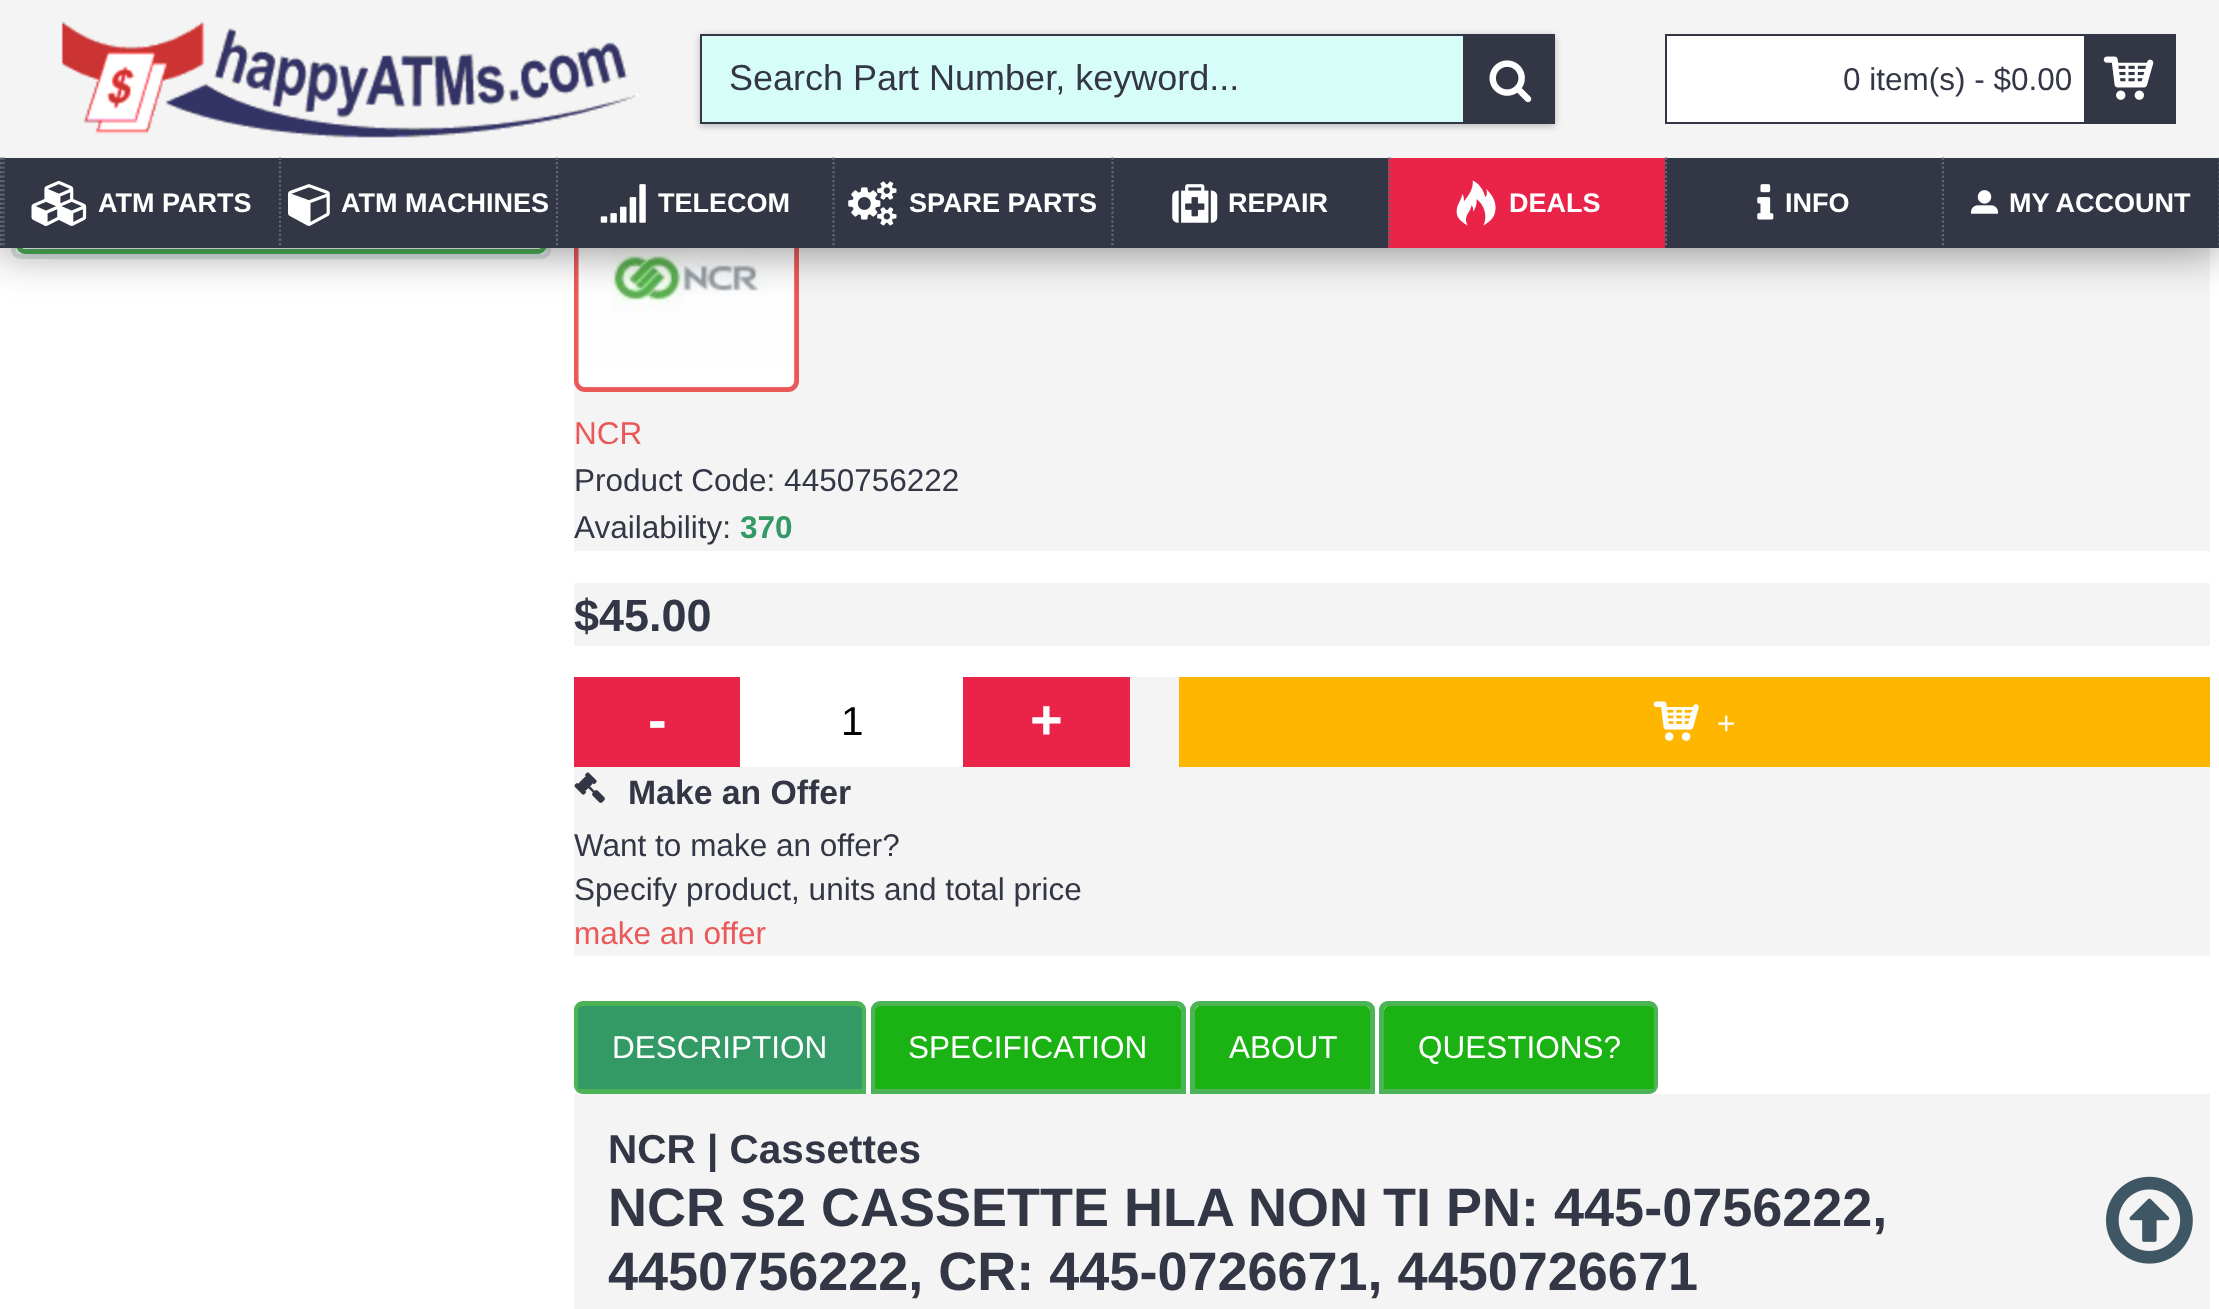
<svg xmlns="http://www.w3.org/2000/svg" width="2219" height="1309" viewBox="0 0 2219 1309">
  <rect width="100%" height="100%" fill="#fff"/>
  <rect x="13.5" y="-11.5" width="535" height="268" rx="6.5" fill="none" stroke="#dfe5e8" stroke-width="5"/>
  <rect x="18.5" y="-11.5" width="526" height="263" rx="6.5" fill="none" stroke="#4cb356" stroke-width="5"/>
  <path d="M574 248h1636v303H574z" fill="#f4f4f4"/>
  <rect x="576.5" y="169.5" width="220" height="220" rx="8.5" fill="none" stroke="#eb5858" stroke-width="5"/>
  <image x="577" y="248" width="218" height="140" href="img/12.png"/>
  <path d="M0 2h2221v248H0z" fill="#00000073" filter="blur(22.5px)"/>
  <path d="M0 0h2219v158H0z" fill="#f4f4f4"/>
  <image x="61" y="21" width="578" height="117" href="img/1.png"/>
  <path d="M700 36h855v90H700z" fill="#00000040" filter="blur(3.5px)"/>
  <path d="M702 36h761v86H702z" fill="#d6fdf8"/>
  <path d="M701 35h853v88H701z" fill="none" stroke="#333745" stroke-width="2"/>
  <path d="M1463 36h90v86H1463z" fill="#333745"/>
  <image x="1489" y="60" width="43" height="43" href="img/2.png"/>
  <path d="M1667 36h417v86H1667z" fill="#fff"/>
  <path d="M1666 35h509v88H1666z" fill="none" stroke="#333745" stroke-width="2"/>
  <path d="M2084 36h90v86H2084z" fill="#333745"/>
  <image x="2103" y="56" width="51" height="44" href="img/3.png"/>
  <path d="M0 158h2219v90H0z" fill="#333745"/>
  <path d="M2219.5 157.5V247.5" fill="none" stroke="#5f6874" stroke-width="2.2" stroke-dasharray="2.25 2.25"/>
  <path d="M1 157.5V247.5" fill="none" stroke="#5f6874" stroke-width="2.2" stroke-dasharray="2.25 2.25"/>
  <path d="M3.5 157.5V247.5" fill="none" stroke="#5f6874" stroke-width="2.2" stroke-dasharray="2.25 2.25"/>
  <image x="31" y="181" width="56" height="45" href="img/4.png"/>
  <path d="M280 157.5V247.5" fill="none" stroke="#5f6874" stroke-width="2.2" stroke-dasharray="2.25 2.25"/>
  <image x="288" y="184" width="42" height="42" href="img/5.png"/>
  <path d="M557 157.5V247.5" fill="none" stroke="#5f6874" stroke-width="2.2" stroke-dasharray="2.25 2.25"/>
  <image x="600" y="184" width="46" height="39" href="img/6.png"/>
  <path d="M833.5 157.5V247.5" fill="none" stroke="#5f6874" stroke-width="2.2" stroke-dasharray="2.25 2.25"/>
  <image x="848" y="181" width="49" height="45" href="img/7.png"/>
  <path d="M1112.5 157.5V247.5" fill="none" stroke="#5f6874" stroke-width="2.2" stroke-dasharray="2.25 2.25"/>
  <image x="1172" y="184" width="46" height="39" href="img/8.png"/>
  <path d="M1388 158h277v90H1388z" fill="#ea2349"/>
  <path d="M1389.5 157.5V247.5" fill="none" stroke="#5f6874" stroke-width="2.2" stroke-dasharray="2.25 2.25"/>
  <image x="1456" y="180" width="40" height="46" href="img/9.png"/>
  <path d="M1666 157.5V247.5" fill="none" stroke="#5f6874" stroke-width="2.2" stroke-dasharray="2.25 2.25"/>
  <image x="1757" y="184" width="17" height="36" href="img/10.png"/>
  <path d="M1943 157.5V247.5" fill="none" stroke="#5f6874" stroke-width="2.2" stroke-dasharray="2.25 2.25"/>
  <image x="1971" y="190" width="27" height="24" href="img/11.png"/>
  <path d="M574 583h1636v63H574z" fill="#f4f4f4"/>
  <path d="M1130 677h49v90H1130z" fill="#f4f4f4"/>
  <path d="M574 677h166v90H574z" fill="#ea2349"/>
  <path d="M963 677h167v90H963z" fill="#ea2349"/>
  <path d="M1179 677h1031v90H1179z" fill="#ffb600"/>
  <image x="1653" y="701" width="46" height="40" href="img/13.png"/>
  <path d="M574 767h1636v189H574z" fill="#f4f4f4"/>
  <image x="574" y="772" width="31" height="31" href="img/14.png"/>
  <path d="M583 1001C578 1001 574 1005 574 1010V1085C574 1090 578 1094 583 1094H866V1010C866 1005 862 1001 857 1001ZM583 1006C581 1006 579 1008 579 1010V1089H861V1010C861 1008 859 1006 857 1006Z" fill="#4cb356" fill-rule="evenodd"/>
  <path d="M583 1006H857C860 1006 862 1008 862 1011V1089H578V1011C578 1008 580 1006 583 1006Z" fill="#339965"/>
  <path d="M880 1003.5H1177C1180.5 1003.5 1183.5 1006.5 1183.5 1010V1091.5H873.5V1010C873.5 1006.5 876.5 1003.5 880 1003.5Z" fill="none" stroke="#4cb356" stroke-width="5"/>
  <path d="M880 1006H1176C1179 1006 1181 1008 1181 1011V1089H875V1011C875 1008 877 1006 880 1006Z" fill="#1bb214"/>
  <path d="M1199 1003.5H1366C1369.5 1003.5 1372.5 1006.5 1372.5 1010V1091.5H1192.5V1010C1192.5 1006.5 1195.5 1003.5 1199 1003.5Z" fill="none" stroke="#4cb356" stroke-width="5"/>
  <path d="M1200 1006H1365C1368 1006 1370 1008 1370 1011V1089H1195V1011C1195 1008 1197 1006 1200 1006Z" fill="#1bb214"/>
  <path d="M1388 1001C1383 1001 1379 1005 1379 1010V1094H1649C1654 1094 1658 1090 1658 1085V1010C1658 1005 1654 1001 1649 1001ZM1388 1006C1386 1006 1384 1008 1384 1010V1089H1653V1010C1653 1008 1651 1006 1649 1006Z" fill="#4cb356" fill-rule="evenodd"/>
  <path d="M1389 1006H1649C1652 1006 1654 1008 1654 1011V1089H1384V1011C1384 1008 1386 1006 1389 1006Z" fill="#1bb214"/>
  <path d="M574 1094h1636v215H574z" fill="#f4f4f4"/>
  <image x="2106" y="1176" width="87" height="88" href="img/15.png"/>
  <text x="729" y="90" font-family="Liberation Sans" font-size="36" fill="#333745">Search Part Number, keyword...</text>
  <text x="1843" y="90" font-family="Liberation Sans" font-size="31.5" fill="#333745">0 item(s) - $0.00</text>
  <g font-family="Liberation Sans" font-size="27" font-weight="bold" fill="#fff">
    <text x="98" y="212">ATM PARTS</text>
    <text x="341" y="212">ATM MACHINES</text>
    <text x="658" y="212">TELECOM</text>
    <text x="909" y="212">SPARE PARTS</text>
    <text x="1228" y="212">REPAIR</text>
    <text x="1509" y="212">DEALS</text>
    <text x="1785" y="212">INFO</text>
    <text x="2009" y="212">MY ACCOUNT</text>
  </g>
  <text x="574" y="444" font-family="Liberation Sans" font-size="31.5" fill="#eb5858">NCR</text>
  <g font-family="Liberation Sans" font-size="31.5" fill="#333745">
    <text x="574" y="491">Product Code: 4450756222</text>
    <text x="574" y="538">Availability:</text>
  </g>
  <text x="740" y="538" font-family="Liberation Sans" font-size="31.5" font-weight="bold" fill="#339965">370</text>
  <text x="574" y="631" font-family="Liberation Sans" font-size="45" font-weight="bold" fill="#333745">$45.00</text>
  <text x="648" y="739" font-family="Liberation Sans" font-size="56" font-weight="bold" fill="#fff">-</text>
  <text x="841" y="735" font-family="Liberation Sans" font-size="40.5" fill="#000">1</text>
  <text x="1030" y="739" font-family="Liberation Sans" font-size="56" font-weight="bold" fill="#fff">+</text>
  <text x="1717" y="734" font-family="Liberation Sans" font-size="31.5" fill="#fff">+</text>
  <text x="628" y="804" font-family="Liberation Sans" font-size="33.75" font-weight="bold" fill="#333745">Make an Offer</text>
  <g font-family="Liberation Sans" font-size="31.5" fill="#333745">
    <text x="574" y="856">Want to make an offer?</text>
    <text x="574" y="900">Specify product, units and total price</text>
  </g>
  <text x="574" y="944" font-family="Liberation Sans" font-size="31.5" fill="#eb5858">make an offer</text>
  <g font-family="Liberation Sans" font-size="31.5" fill="#fff">
    <text x="612" y="1058">DESCRIPTION</text>
    <text x="908" y="1058">SPECIFICATION</text>
    <text x="1229" y="1058">ABOUT</text>
    <text x="1418" y="1058">QUESTIONS?</text>
  </g>
  <text x="608" y="1163" font-family="Liberation Sans" font-size="40.5" font-weight="bold" fill="#333745">NCR | Cassettes</text>
  <g font-family="Liberation Sans" font-size="54" font-weight="bold" fill="#333745">
    <text x="608" y="1226">NCR S2 CASSETTE HLA NON TI PN: 445-0756222,</text>
    <text x="608" y="1290">4450756222, CR: 445-0726671, 4450726671</text>
  </g>
</svg>
